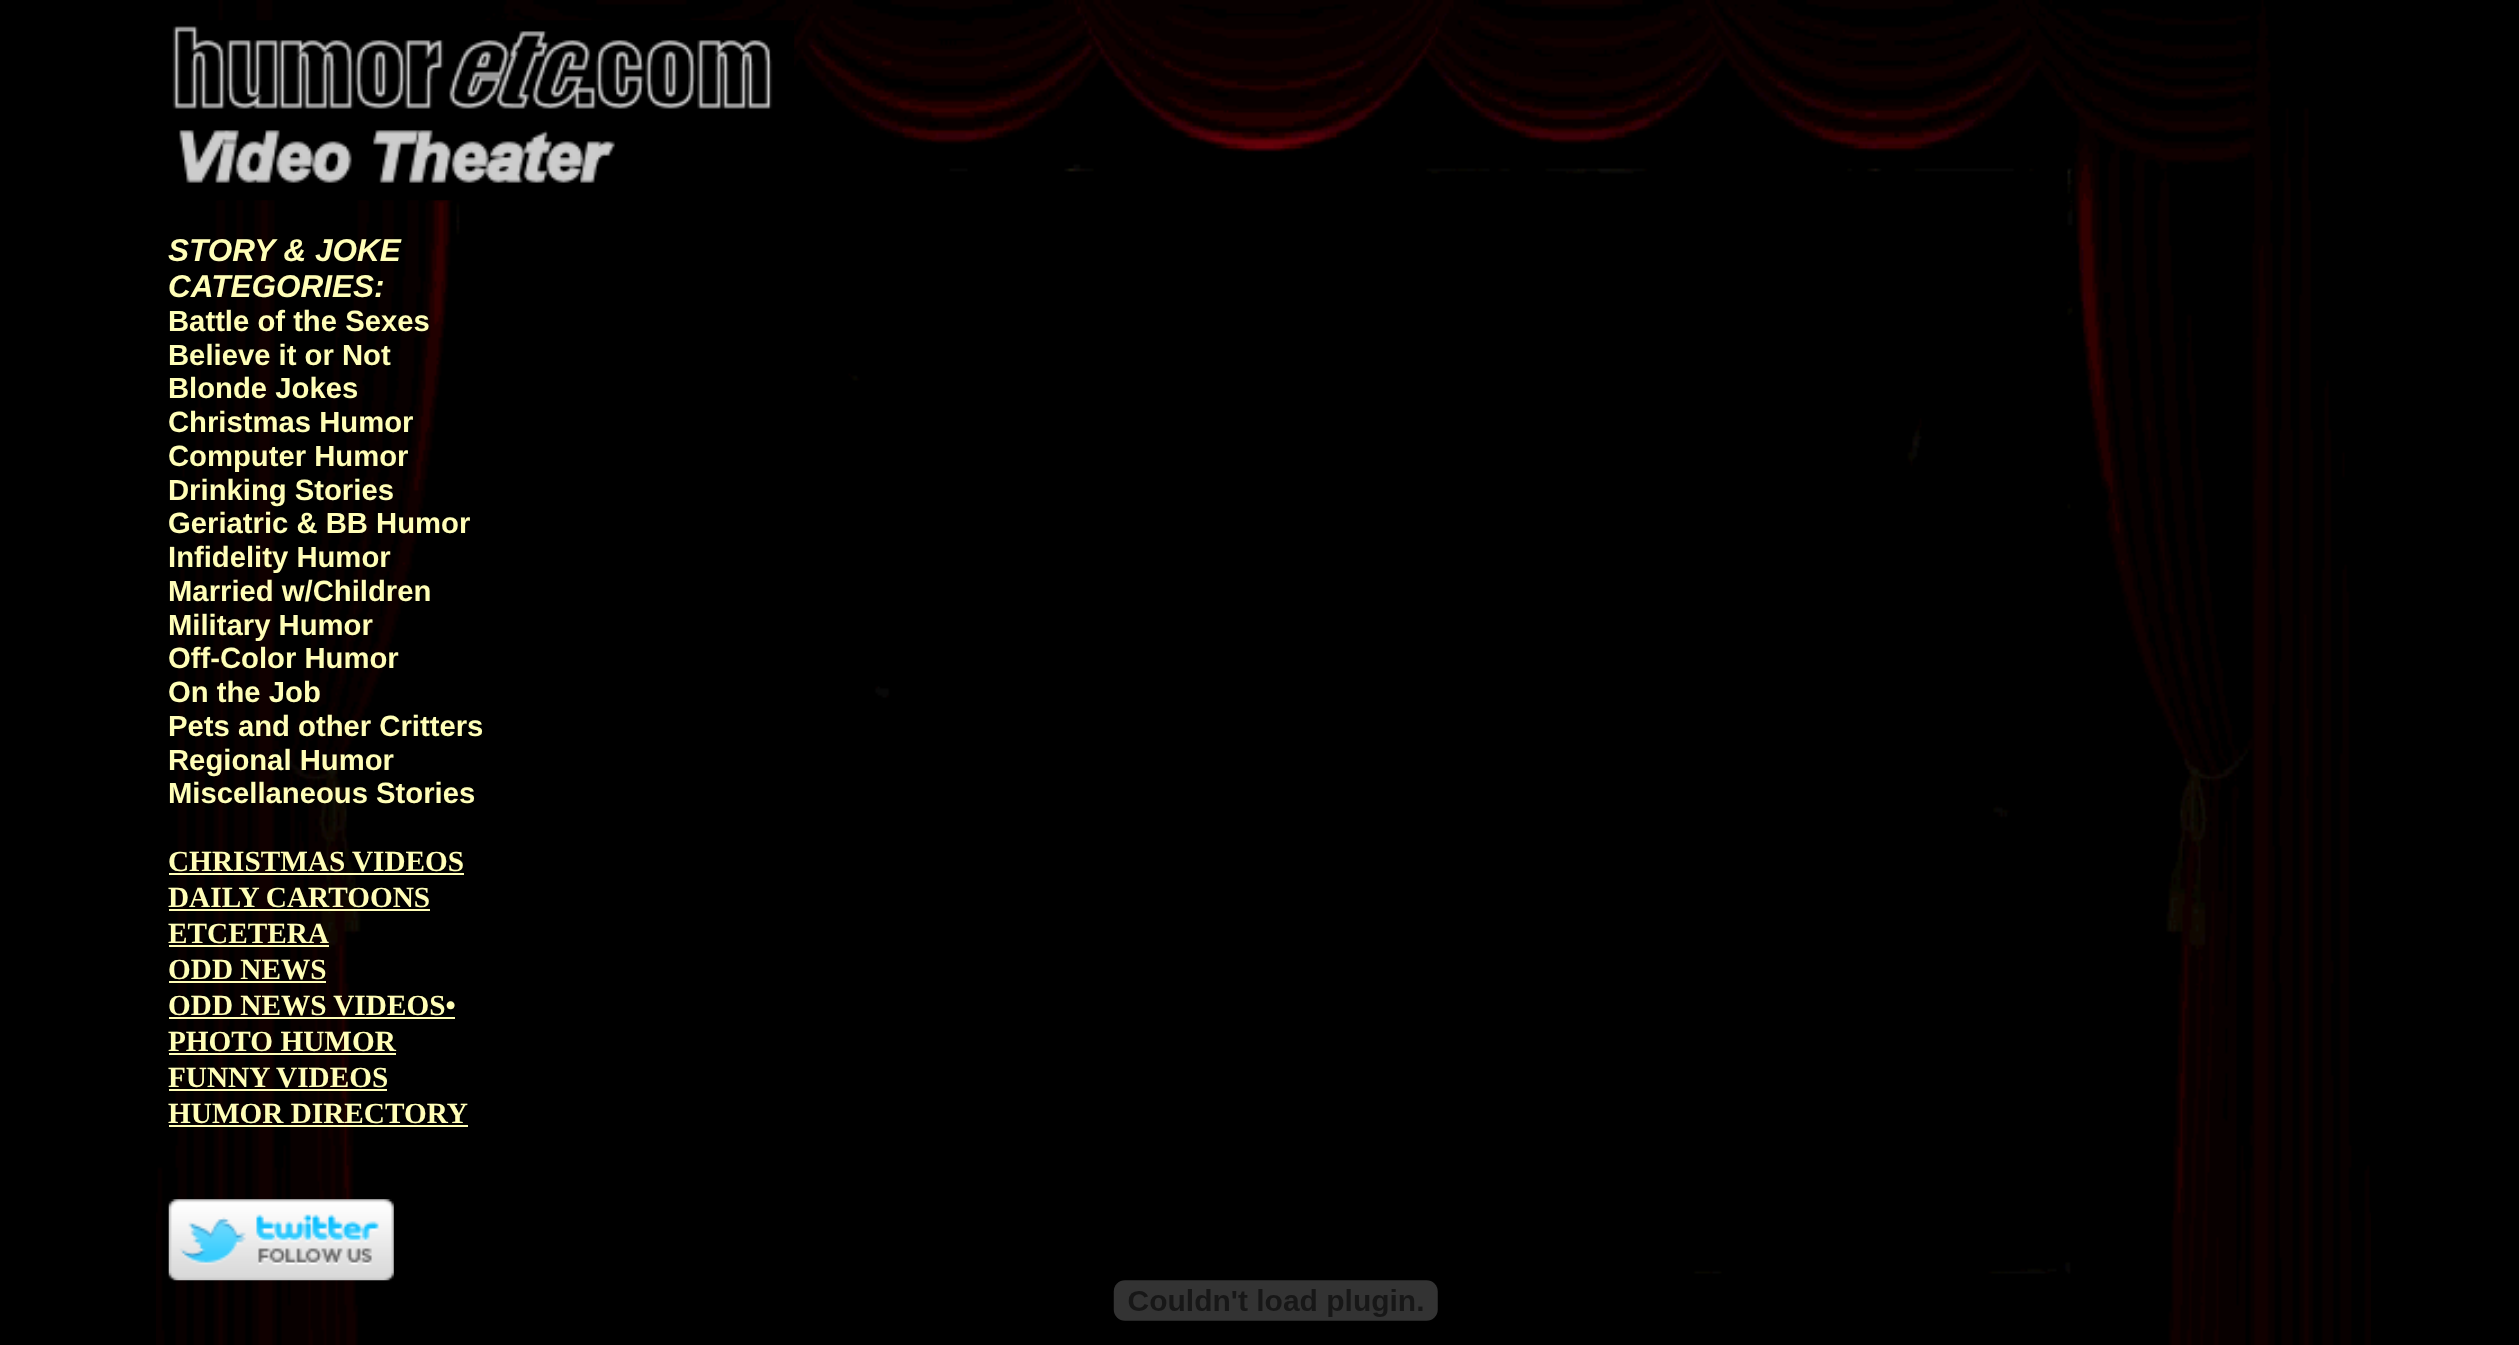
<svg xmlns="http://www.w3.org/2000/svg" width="2519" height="1345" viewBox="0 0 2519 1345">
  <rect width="100%" height="100%" fill="#000"/>
  <image x="156" y="0" width="2215" height="1345" href="img/1.png"/>
  <image x="172" y="20" width="623" height="181" href="img/2.png"/>
  <path d="M169 873h295v2H169z" fill="#fffeb7"/>
  <path d="M169 909h261v2H169z" fill="#fffeb7"/>
  <path d="M169 945h160v2H169z" fill="#fffeb7"/>
  <path d="M169 981h157v2H169z" fill="#fffeb7"/>
  <path d="M169 1017h286v2H169z" fill="#fffeb7"/>
  <path d="M169 1053h227v2H169z" fill="#fffeb7"/>
  <path d="M169 1089h218v2H169z" fill="#fffeb7"/>
  <path d="M169 1125h299v2H169z" fill="#fffeb7"/>
  <image x="168" y="1199" width="226" height="82" href="img/3.png"/>
  <image x="1113" y="1280" width="325" height="41" href="img/4.png"/>
  <g font-family="Liberation Sans" font-size="31.5" font-weight="bold" font-style="italic" fill="#fffeb7">
    <text x="168" y="261">STORY &amp; JOKE</text>
    <text x="168" y="297">CATEGORIES:</text>
  </g>
  <g font-family="Liberation Sans" font-size="29.25" font-weight="bold" fill="#fffeb7">
    <text x="168" y="331">Battle of the Sexes</text>
    <text x="168" y="365">Believe it or Not</text>
    <text x="168" y="398">Blonde Jokes</text>
    <text x="168" y="432">Christmas Humor</text>
    <text x="168" y="466">Computer Humor</text>
    <text x="168" y="500">Drinking Stories</text>
    <text x="168" y="533">Geriatric &amp; BB Humor</text>
    <text x="168" y="567">Infidelity Humor</text>
    <text x="168" y="601">Married w/Children</text>
    <text x="168" y="635">Military Humor</text>
    <text x="168" y="668">Off-Color Humor</text>
    <text x="168" y="702">On the Job</text>
    <text x="168" y="736">Pets and other Critters</text>
    <text x="168" y="770">Regional Humor</text>
    <text x="168" y="803">Miscellaneous Stories</text>
  </g>
  <g font-family="Liberation Serif" font-size="29.25" font-weight="bold" fill="#fffeb7">
    <text x="168" y="871">CHRISTMAS VIDEOS</text>
    <text x="168" y="907">DAILY CARTOONS</text>
    <text x="168" y="943">ETCETERA</text>
    <text x="168" y="979">ODD NEWS</text>
    <text x="168" y="1015">ODD NEWS VIDEOS•</text>
    <text x="168" y="1051">PHOTO HUMOR</text>
    <text x="168" y="1087">FUNNY VIDEOS</text>
    <text x="168" y="1123">HUMOR DIRECTORY</text>
  </g>
</svg>
